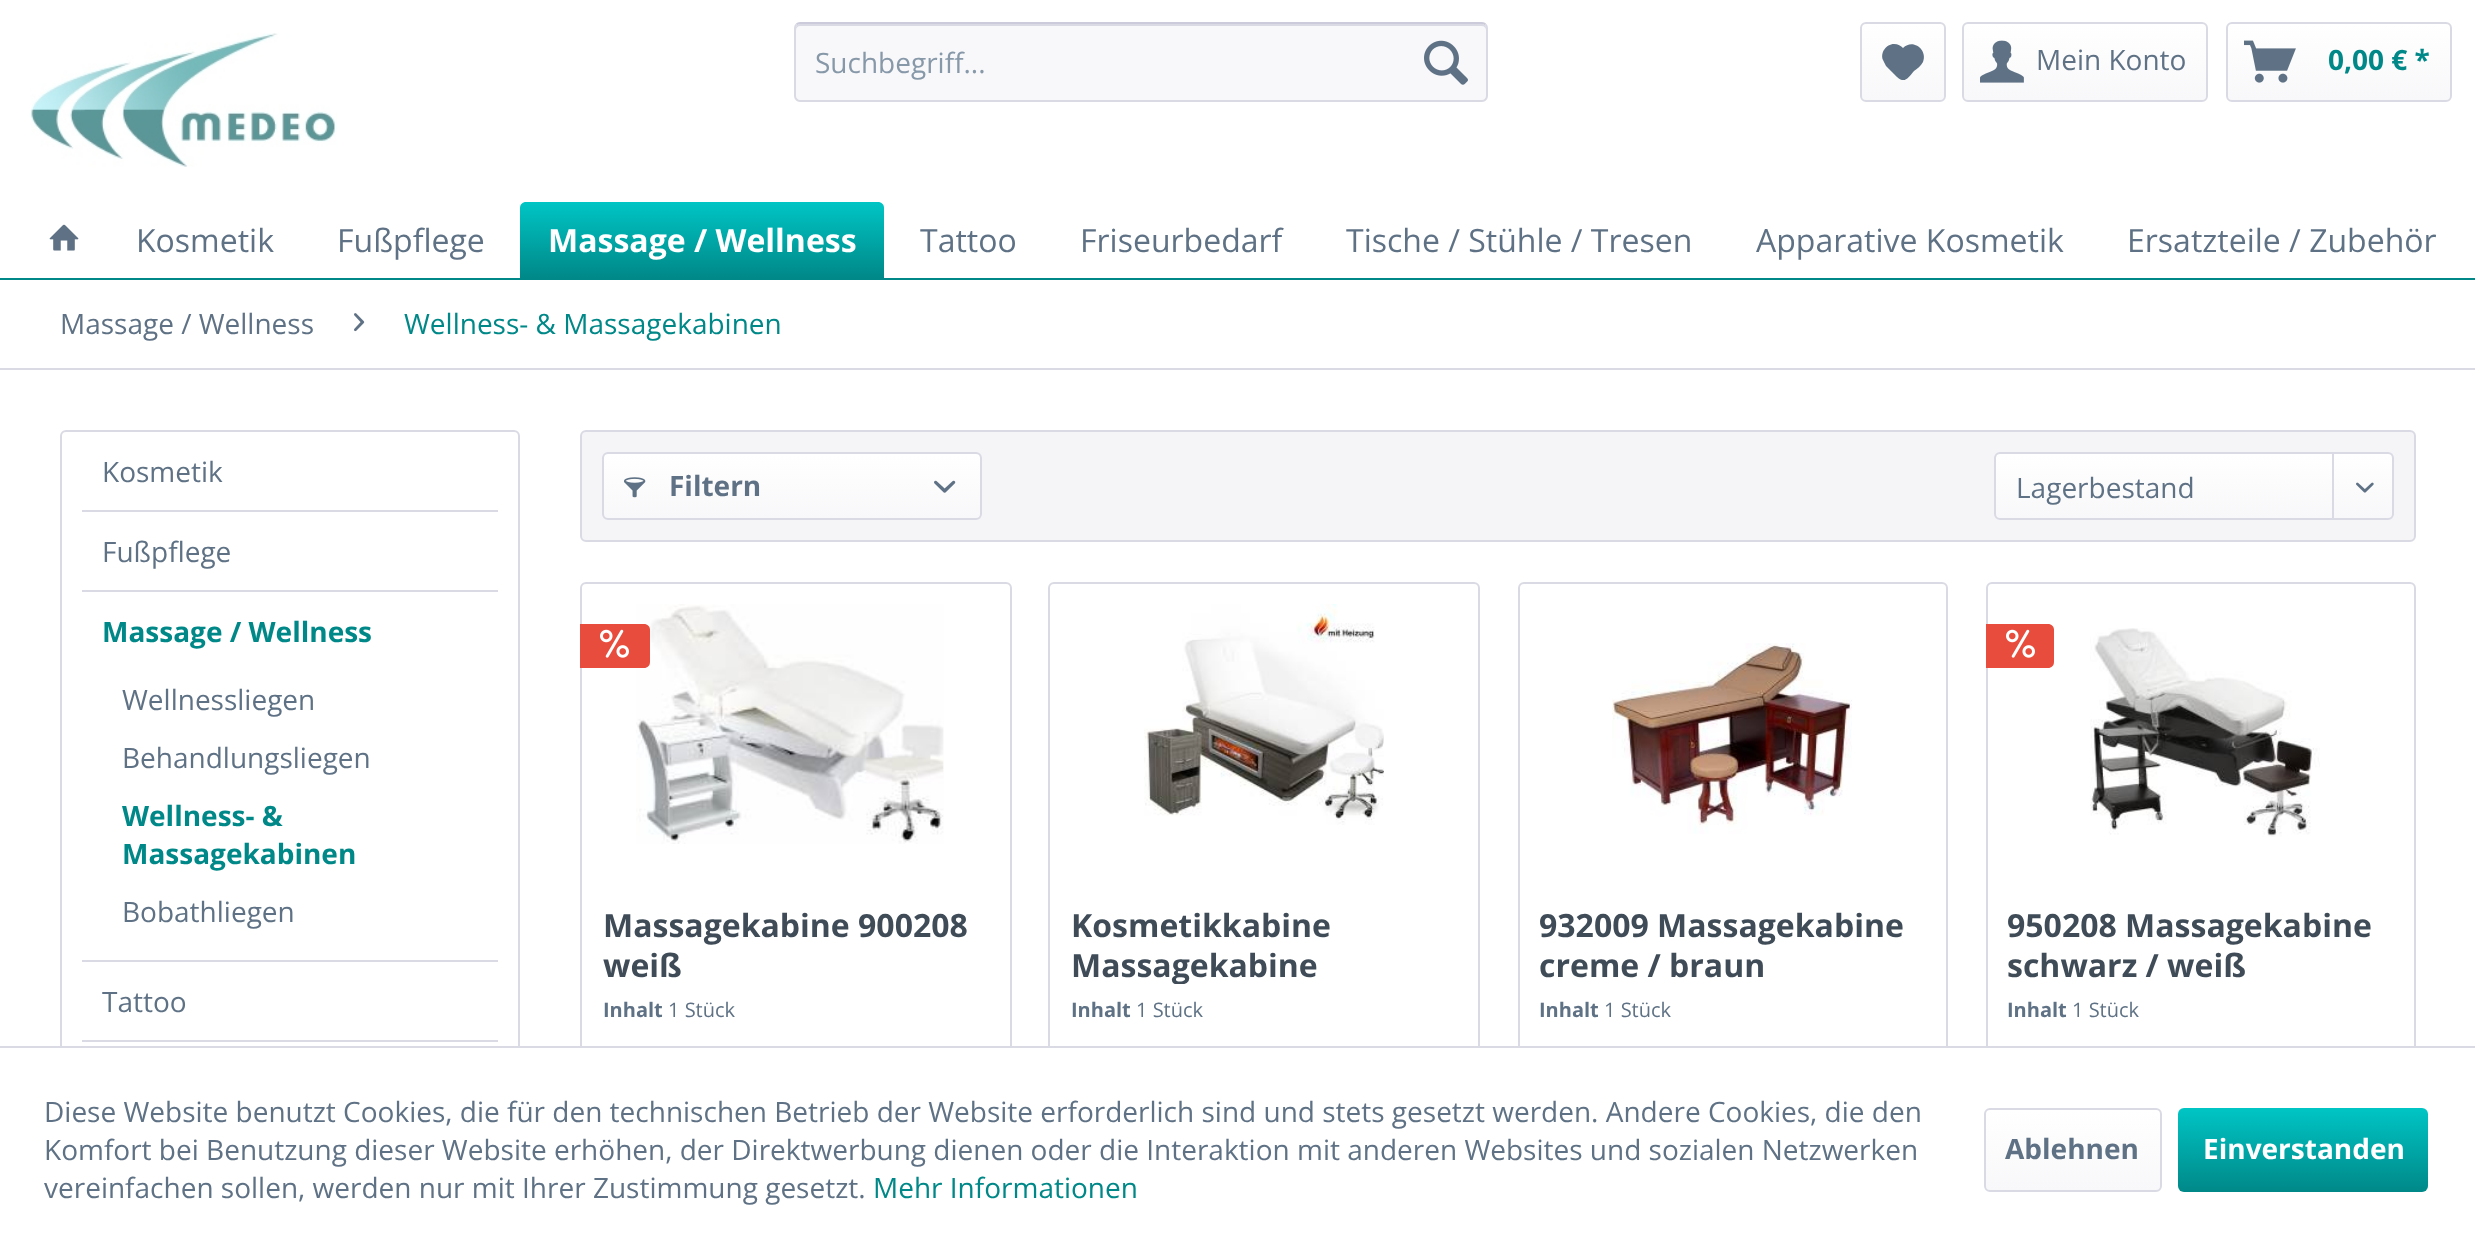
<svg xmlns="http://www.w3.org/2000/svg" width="2475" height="1249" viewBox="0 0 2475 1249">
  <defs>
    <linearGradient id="g1" gradientUnits="userSpaceOnUse" x1="1903" y1="24" x2="1903" y2="100"><stop offset="0" stop-color="#fff"/><stop offset="1" stop-color="#f8f8fa"/></linearGradient>
    <linearGradient id="g2" gradientUnits="userSpaceOnUse" x1="2085" y1="24" x2="2085" y2="100"><stop offset="0" stop-color="#fff"/><stop offset="1" stop-color="#f8f8fa"/></linearGradient>
    <linearGradient id="g3" gradientUnits="userSpaceOnUse" x1="2339" y1="24" x2="2339" y2="100"><stop offset="0" stop-color="#fff"/><stop offset="1" stop-color="#f8f8fa"/></linearGradient>
    <linearGradient id="g4" gradientUnits="userSpaceOnUse" x1="702" y1="202" x2="702" y2="278"><stop offset="0" stop-color="#00c5c5"/><stop offset="1" stop-color="#088"/></linearGradient>
    <linearGradient id="g5" gradientUnits="userSpaceOnUse" x1="792" y1="454" x2="792" y2="518"><stop offset="0" stop-color="#fff"/><stop offset="1" stop-color="#f8f8fa"/></linearGradient>
    <linearGradient id="g6" gradientUnits="userSpaceOnUse" x1="2194" y1="454" x2="2194" y2="518"><stop offset="0" stop-color="#fff"/><stop offset="1" stop-color="#f8f8fa"/></linearGradient>
    <linearGradient id="g7" gradientUnits="userSpaceOnUse" x1="2073" y1="1110" x2="2073" y2="1190"><stop offset="0" stop-color="#fff"/><stop offset="1" stop-color="#f8f8fa"/></linearGradient>
    <linearGradient id="g8" gradientUnits="userSpaceOnUse" x1="2303" y1="1108" x2="2303" y2="1192"><stop offset="0" stop-color="#00c5c5"/><stop offset="1" stop-color="#088"/></linearGradient>
    <clipPath id="clip1"><path d="M1070 904h388v80H1070z"/></clipPath>
  </defs>
  <rect width="100%" height="100%" fill="#fff"/>
  <image x="30" y="33" width="307" height="134" href="img/1.png"/>
  <rect x="794" y="22" width="694" height="80" rx="6" fill="#f8f8fa"/>
  <path d="M800 26H1482C1484 26 1486 28 1486 30V28C1486 26 1484 24 1482 24H800C798 24 796 26 796 28V30C796 28 798 26 800 26Z" fill="#dadae5"/>
  <path d="M796.5 24.5C797.5 23.5 798.5 23 800 23H1482C1483.5 23 1484.5 23.5 1485.5 24.5" fill="none" stroke="#cbcbdb" stroke-width="2"/>
  <path d="M1485.5 24.5C1486.5 25.5 1487 26.5 1487 28V96C1487 97.5 1486.5 98.5 1485.5 99.5C1484.5 100.5 1483.5 101 1482 101H800C798.5 101 797.5 100.5 796.5 99.5C795.5 98.5 795 97.5 795 96V28C795 26.5 795.5 25.5 796.5 24.5" fill="none" stroke="#dadae5" stroke-width="2"/>
  <image x="1424" y="40" width="44" height="45" href="img/2.png"/>
  <rect x="1862" y="24" width="82" height="76" rx="4" fill="url(#g1)"/>
  <rect x="1861" y="23" width="84" height="78" rx="5" fill="none" stroke="#dadae5" stroke-width="2"/>
  <path d="M1894 44C1886 44 1880 53 1883 60L1886 66L1897 77C1905 84 1908 78 1914 71C1917 69 1921 66 1923 62C1928 50 1913 38 1903 48C1901 46 1898 44 1894 44Z" fill="#5f7285"/>
  <rect x="1964" y="24" width="242" height="76" rx="4" fill="url(#g2)"/>
  <rect x="1963" y="23" width="244" height="78" rx="5" fill="none" stroke="#dadae5" stroke-width="2"/>
  <image x="1980" y="40" width="44" height="43" href="img/3.png"/>
  <rect x="2228" y="24" width="222" height="76" rx="4" fill="url(#g3)"/>
  <rect x="2227" y="23" width="224" height="78" rx="5" fill="none" stroke="#dadae5" stroke-width="2"/>
  <image x="2244" y="40" width="52" height="43" href="img/4.png"/>
  <path d="M0 278h2475v2H0z" fill="#088"/>
  <image x="49" y="224" width="30" height="27" href="img/5.png"/>
  <path d="M526 202H878C881.5 202 884 204.5 884 208V278H520V208C520 204.5 522.5 202 526 202Z" fill="url(#g4)"/>
  <path d="M0 368h2475v2H0z" fill="#dadae5"/>
  <image x="354" y="313" width="11" height="19" href="img/6.png"/>
  <rect x="61" y="431" width="458" height="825" rx="5" fill="none" stroke="#dadae5" stroke-width="2"/>
  <path d="M82 510h416v2H82z" fill="#dadae5"/>
  <path d="M82 590h416v2H82z" fill="#dadae5"/>
  <path d="M82 960h416v2H82z" fill="#dadae5"/>
  <path d="M82 1040h416v2H82z" fill="#dadae5"/>
  <rect x="581" y="431" width="1834" height="110" rx="5" fill="#f5f5f8" stroke="#dadae5" stroke-width="2"/>
  <rect x="604" y="454" width="376" height="64" rx="4" fill="url(#g5)"/>
  <rect x="603" y="453" width="378" height="66" rx="5" fill="none" stroke="#dadae5" stroke-width="2"/>
  <image x="624" y="477" width="22" height="21" href="img/7.png"/>
  <image x="934" y="480" width="22" height="13" href="img/8.png"/>
  <rect x="1996" y="454" width="396" height="64" rx="4" fill="url(#g6)"/>
  <rect x="1995" y="453" width="398" height="66" rx="5" fill="none" stroke="#dadae5" stroke-width="2"/>
  <path d="M2332 454h2v66H2332z" fill="#dadae5"/>
  <image x="2356" y="482" width="18" height="11" href="img/9.png"/>
  <rect x="581" y="583" width="430" height="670" rx="5" fill="none" stroke="#dadae5" stroke-width="2"/>
  <image x="636" y="604" width="308" height="240" href="img/11.png"/>
  <path d="M580 624H644C647.5 624 650 626.5 650 630V662C650 665.5 647.5 668 644 668H580Z" fill="#e74c3c"/>
  <image x="600" y="629" width="29" height="29" href="img/10.png"/>
  <rect x="1049" y="583" width="430" height="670" rx="5" fill="none" stroke="#dadae5" stroke-width="2"/>
  <image x="1144" y="604" width="240" height="221" href="img/12.png"/>
  <rect x="1519" y="583" width="428" height="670" rx="5" fill="none" stroke="#dadae5" stroke-width="2"/>
  <image x="1612" y="643" width="240" height="191" href="img/13.png"/>
  <rect x="1987" y="583" width="428" height="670" rx="5" fill="none" stroke="#dadae5" stroke-width="2"/>
  <path d="M1986 624H2048C2051.5 624 2054 626.5 2054 630V662C2054 665.5 2051.5 668 2048 668H1986Z" fill="#e74c3c"/>
  <image x="2006" y="629" width="29" height="29" href="img/10.png"/>
  <image x="2090" y="628" width="230" height="209" href="img/14.png"/>
  <path d="M60 1048h2356v201H60z" fill="#fff"/>
  <path d="M0 1046h2475v2H0z" fill="#dadae5"/>
  <rect x="1986" y="1110" width="174" height="80" rx="4" fill="url(#g7)"/>
  <rect x="1985" y="1109" width="176" height="82" rx="5" fill="none" stroke="#dadae5" stroke-width="2"/>
  <rect x="2178" y="1108" width="250" height="84" rx="6" fill="url(#g8)"/>
  <text x="815" y="73" font-family="Open Sans" font-size="28" fill="#8798a9">Suchbegriff...</text>
  <text x="2036" y="70" font-family="Open Sans" font-size="28" fill="#5f7285">Mein Konto</text>
  <text x="2328" y="70" font-family="Open Sans" font-size="28" font-weight="bold" fill="#088">0,00 € *</text>
  <g font-family="Open Sans" font-size="32" fill="#5f7285">
    <text x="136" y="252">Kosmetik</text>
    <text x="337" y="252">Fußpflege</text>
  </g>
  <text x="548" y="252" font-family="Open Sans" font-size="32" font-weight="bold" fill="#fff">Massage / Wellness</text>
  <g font-family="Open Sans" font-size="32" fill="#5f7285">
    <text x="920" y="252">Tattoo</text>
    <text x="1080" y="252">Friseurbedarf</text>
    <text x="1346" y="252">Tische / Stühle / Tresen</text>
    <text x="1756" y="252">Apparative Kosmetik</text>
    <text x="2127" y="252">Ersatzteile / Zubehör</text>
  </g>
  <text x="60" y="334" font-family="Open Sans" font-size="28" fill="#5f7285">Massage / Wellness</text>
  <text x="404" y="334" font-family="Open Sans" font-size="28" fill="#088">Wellness- &amp; Massagekabinen</text>
  <g font-family="Open Sans" font-size="28" fill="#5f7285">
    <text x="102" y="482">Kosmetik</text>
    <text x="102" y="562">Fußpflege</text>
  </g>
  <text x="102" y="642" font-family="Open Sans" font-size="28" font-weight="bold" fill="#088">Massage / Wellness</text>
  <g font-family="Open Sans" font-size="28" fill="#5f7285">
    <text x="122" y="710">Wellnessliegen</text>
    <text x="122" y="768">Behandlungsliegen</text>
  </g>
  <g font-family="Open Sans" font-size="28" font-weight="bold" fill="#088">
    <text x="122" y="826">Wellness- &amp;</text>
    <text x="122" y="864">Massagekabinen</text>
  </g>
  <g font-family="Open Sans" font-size="28" fill="#5f7285">
    <text x="122" y="922">Bobathliegen</text>
    <text x="102" y="1012">Tattoo</text>
  </g>
  <text x="669" y="496" font-family="Open Sans" font-size="28" font-weight="bold" fill="#5f7285">Filtern</text>
  <text x="2016" y="498" font-family="Open Sans" font-size="28" fill="#5f7285">Lagerbestand</text>
  <g font-family="Open Sans" font-size="32" font-weight="bold" fill="#3f4c58">
    <text x="603" y="937">Massagekabine 900208</text>
    <text x="603" y="977">weiß</text>
  </g>
  <text x="603" y="1017" font-family="Open Sans" font-size="20" font-weight="bold" fill="#5f7285">Inhalt</text>
  <text x="668" y="1017" font-family="Open Sans" font-size="20" fill="#5f7285">1 Stück</text>
  <text x="1071" y="937" font-family="Open Sans" font-size="32" font-weight="bold" fill="#3f4c58">Kosmetikkabine</text>
  <g clip-path="url(#clip1)">
    <text x="1071" y="977" font-family="Open Sans" font-size="32" font-weight="bold" fill="#3f4c58">Massagekabine</text>
  </g>
  <text x="1071" y="1017" font-family="Open Sans" font-size="20" font-weight="bold" fill="#5f7285">Inhalt</text>
  <text x="1136" y="1017" font-family="Open Sans" font-size="20" fill="#5f7285">1 Stück</text>
  <g font-family="Open Sans" font-size="32" font-weight="bold" fill="#3f4c58">
    <text x="1539" y="937">932009 Massagekabine</text>
    <text x="1539" y="977">creme / braun</text>
  </g>
  <text x="1539" y="1017" font-family="Open Sans" font-size="20" font-weight="bold" fill="#5f7285">Inhalt</text>
  <text x="1604" y="1017" font-family="Open Sans" font-size="20" fill="#5f7285">1 Stück</text>
  <g font-family="Open Sans" font-size="32" font-weight="bold" fill="#3f4c58">
    <text x="2007" y="937">950208 Massagekabine</text>
    <text x="2007" y="977">schwarz / weiß</text>
  </g>
  <text x="2007" y="1017" font-family="Open Sans" font-size="20" font-weight="bold" fill="#5f7285">Inhalt</text>
  <text x="2072" y="1017" font-family="Open Sans" font-size="20" fill="#5f7285">1 Stück</text>
  <g font-family="Open Sans" font-size="28" fill="#5f7285">
    <text x="44" y="1122">Diese Website benutzt Cookies, die für den technischen Betrieb der Website erforderlich sind und stets gesetzt werden. Andere Cookies, die den</text>
    <text x="44" y="1160">Komfort bei Benutzung dieser Website erhöhen, der Direktwerbung dienen oder die Interaktion mit anderen Websites und sozialen Netzwerken</text>
    <text x="44" y="1198">vereinfachen sollen, werden nur mit Ihrer Zustimmung gesetzt.</text>
  </g>
  <text x="873" y="1198" font-family="Open Sans" font-size="28" fill="#088">Mehr Informationen</text>
  <text x="2005" y="1159" font-family="Open Sans" font-size="28" font-weight="bold" fill="#5f7285">Ablehnen</text>
  <text x="2203" y="1159" font-family="Open Sans" font-size="28" font-weight="bold" fill="#fff">Einverstanden</text>
</svg>
